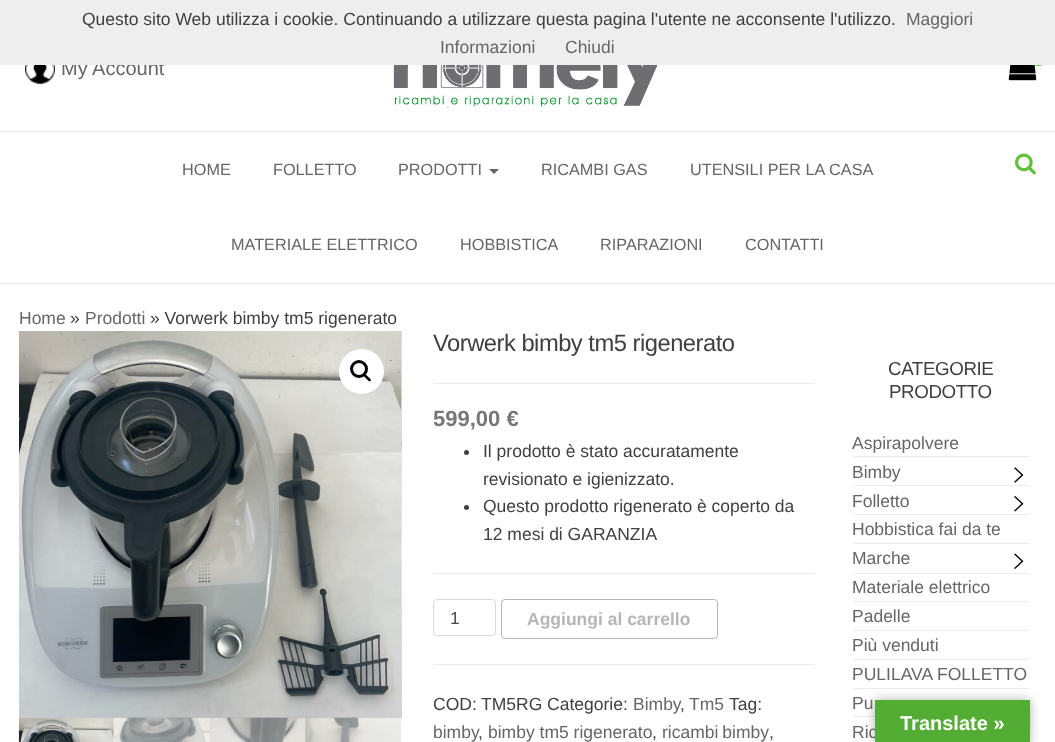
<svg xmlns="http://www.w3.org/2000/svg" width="1055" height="742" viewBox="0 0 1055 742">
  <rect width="100%" height="100%" fill="#fff"/>
  <image x="25" y="65" width="30" height="19" href="img/1.png"/>
  <image x="393" y="65" width="272" height="45" href="img/2.png"/>
  <image x="1008" y="65" width="29" height="16" href="img/3.png"/>
  <circle cx="1038.5" cy="53.5" r="12.5" fill="#60bf3b"/>
  <path d="M0 131h1055v1H0z" fill="#e2e2e2"/>
  <path d="M0 283h1055v1H0z" fill="#e2e2e2"/>
  <path d="M489 169H499L494 174Z" fill="#666"/>
  <image x="1015" y="153" width="21" height="22" href="img/4.png"/>
  <image x="401" y="331" width="1" height="387" href="img/6.png"/>
  <image x="19" y="331" width="383" height="387" href="img/5.png"/>
  <circle cx="361.5" cy="371.5" r="22.5" fill="#fff"/>
  <circle cx="359" cy="369" r="7.5" fill="none" stroke="#000" stroke-width="3"/>
  <path d="M363.5 374C365 372.5 367 376 368 376.5C368.5 377.5 372 379.5 370.5 381C369 382.5 367 379 366 378.5C365.5 377.5 362 375.5 363.5 374Z" fill="#000"/>
  <image x="18" y="718" width="96" height="24" href="img/7.png"/>
  <image x="113" y="717" width="97" height="25" href="img/8.png"/>
  <image x="210" y="717" width="95" height="25" href="img/9.png"/>
  <image x="305" y="717" width="96" height="25" href="img/10.png"/>
  <path d="M433 383h382v1H433z" fill="#eaeaea"/>
  <circle cx="466.5" cy="452.5" r="2.5" fill="#404040"/>
  <circle cx="466.5" cy="507.5" r="2.5" fill="#404040"/>
  <path d="M433 573h382v1H433z" fill="#eaeaea"/>
  <path d="M433 664h382v1H433z" fill="#eaeaea"/>
  <rect x="433.5" y="599.5" width="62" height="36" rx="3.5" fill="none" stroke="#dadada"/>
  <rect x="501.5" y="599.5" width="216" height="39" rx="3.5" fill="none" stroke="#b6b6b6"/>
  <path d="M853 456h176v1H853z" fill="#ebebeb"/>
  <path d="M853 485h176v1H853z" fill="#ebebeb"/>
  <image x="1014" y="467" width="10" height="16" href="img/11.png"/>
  <path d="M853 514h176v1H853z" fill="#ebebeb"/>
  <image x="1014" y="496" width="10" height="16" href="img/12.png"/>
  <path d="M853 543h176v1H853z" fill="#ebebeb"/>
  <path d="M853 573h176v1H853z" fill="#ebebeb"/>
  <image x="1014" y="553" width="10" height="16" href="img/13.png"/>
  <path d="M853 601h176v1H853z" fill="#ebebeb"/>
  <path d="M853 630h176v1H853z" fill="#ebebeb"/>
  <path d="M853 659h176v1H853z" fill="#ebebeb"/>
  <path d="M853 688h176v1H853z" fill="#ebebeb"/>
  <path d="M853 716h22v1H853z" fill="#ebebeb"/>
  <path d="M875 700h155v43H875z" fill="#0000004d" filter="blur(5.5px)"/>
  <text x="61" y="75" font-family="Liberation Sans" font-size="20" fill="#666">My Account</text>
  <path d="M0 0h1055v65H0z" fill="#eee"/>
  <g font-family="Liberation Sans" font-size="17.5" fill="#666">
    <text x="565" y="53">Chiudi</text>
    <text x="440" y="53">Informazioni</text>
    <text x="906" y="25">Maggiori</text>
  </g>
  <text x="82" y="25" font-family="Liberation Sans" font-size="17.5" fill="#404040">Questo sito Web utilizza i cookie. Continuando a utilizzare questa pagina l'utente ne acconsente l'utilizzo.</text>
  <g font-family="Liberation Sans" font-size="16.25" fill="#666">
    <text x="182" y="175">HOME</text>
    <text x="273" y="175">FOLLETTO</text>
    <text x="398" y="175">PRODOTTI</text>
    <text x="541" y="175">RICAMBI GAS</text>
    <text x="690" y="175">UTENSILI PER LA CASA</text>
    <text x="231" y="250">MATERIALE ELETTRICO</text>
    <text x="460" y="250">HOBBISTICA</text>
    <text x="600" y="250">RIPARAZIONI</text>
    <text x="745" y="250">CONTATTI</text>
  </g>
  <text x="19" y="324" font-family="Liberation Sans" font-size="17.5" fill="#666">Home</text>
  <text x="70" y="324" font-family="Liberation Sans" font-size="17.5" fill="#404040">»</text>
  <text x="85" y="324" font-family="Liberation Sans" font-size="17.5" fill="#666">Prodotti</text>
  <text x="150" y="324" font-family="Liberation Sans" font-size="17.5" fill="#404040">» Vorwerk bimby tm5 rigenerato</text>
  <text x="433" y="351" font-family="Liberation Sans" font-size="23.75" letter-spacing="-0.5" fill="#404040">Vorwerk bimby tm5 rigenerato</text>
  <text x="433" y="426" font-family="Liberation Sans" font-size="22" font-weight="bold" fill="#777">599,00 €</text>
  <g font-family="Liberation Sans" font-size="17.5" fill="#404040">
    <text x="483" y="457">Il prodotto è stato accuratamente</text>
    <text x="483" y="485">revisionato e igienizzato.</text>
    <text x="483" y="512">Questo prodotto rigenerato è coperto da</text>
    <text x="483" y="540">12 mesi di GARANZIA</text>
  </g>
  <text x="450" y="624" font-family="Liberation Sans" font-size="17.5" fill="#464a4c">1</text>
  <text x="527" y="625" font-family="Liberation Sans" font-size="17.5" font-weight="bold" fill="#b6b6b6">Aggiungi al carrello</text>
  <g font-family="Liberation Sans" font-size="17.5" fill="#404040">
    <text x="433" y="710">COD:</text>
    <text x="481" y="710">TM5RG Categorie:</text>
  </g>
  <text x="633" y="710" font-family="Liberation Sans" font-size="17.5" fill="#666">Bimby</text>
  <text x="680" y="710" font-family="Liberation Sans" font-size="17.5" fill="#404040">,</text>
  <text x="689" y="710" font-family="Liberation Sans" font-size="17.5" fill="#666">Tm5</text>
  <text x="729" y="710" font-family="Liberation Sans" font-size="17.5" fill="#404040">Tag:</text>
  <text x="433" y="738" font-family="Liberation Sans" font-size="17.5" fill="#666">bimby</text>
  <text x="478" y="738" font-family="Liberation Sans" font-size="17.5" fill="#404040">,</text>
  <text x="488" y="738" font-family="Liberation Sans" font-size="17.5" fill="#666">bimby tm5 rigenerato</text>
  <text x="652" y="738" font-family="Liberation Sans" font-size="17.5" fill="#404040">,</text>
  <text x="662" y="738" word-spacing="-1" font-family="Liberation Sans" font-size="17.5" fill="#666">ricambi bimby</text>
  <text x="769" y="738" font-family="Liberation Sans" font-size="17.5" fill="#404040">,</text>
  <g font-family="Liberation Sans" font-size="18.75" letter-spacing="-0.4" fill="#404040">
    <text x="888" y="375">CATEGORIE</text>
    <text x="889" y="398">PRODOTTO</text>
  </g>
  <g font-family="Liberation Sans" font-size="17.5" fill="#666">
    <text x="852" y="449">Aspirapolvere</text>
    <text x="852" y="478">Bimby</text>
    <text x="852" y="507">Folletto</text>
    <text x="852" y="535">Hobbistica fai da te</text>
    <text x="852" y="564">Marche</text>
    <text x="852" y="593">Materiale elettrico</text>
    <text x="852" y="622">Padelle</text>
    <text x="852" y="651">Più venduti</text>
    <text x="852" y="680">PULILAVA FOLLETTO</text>
    <text x="852" y="709">Pu</text>
    <text x="852" y="738">Ric</text>
  </g>
  <path d="M875 700h155v42H875z" fill="#53ad35"/>
  <text x="900" y="730" font-family="Liberation Sans" font-size="20" font-weight="bold" fill="#fff">Translate »</text>
</svg>
